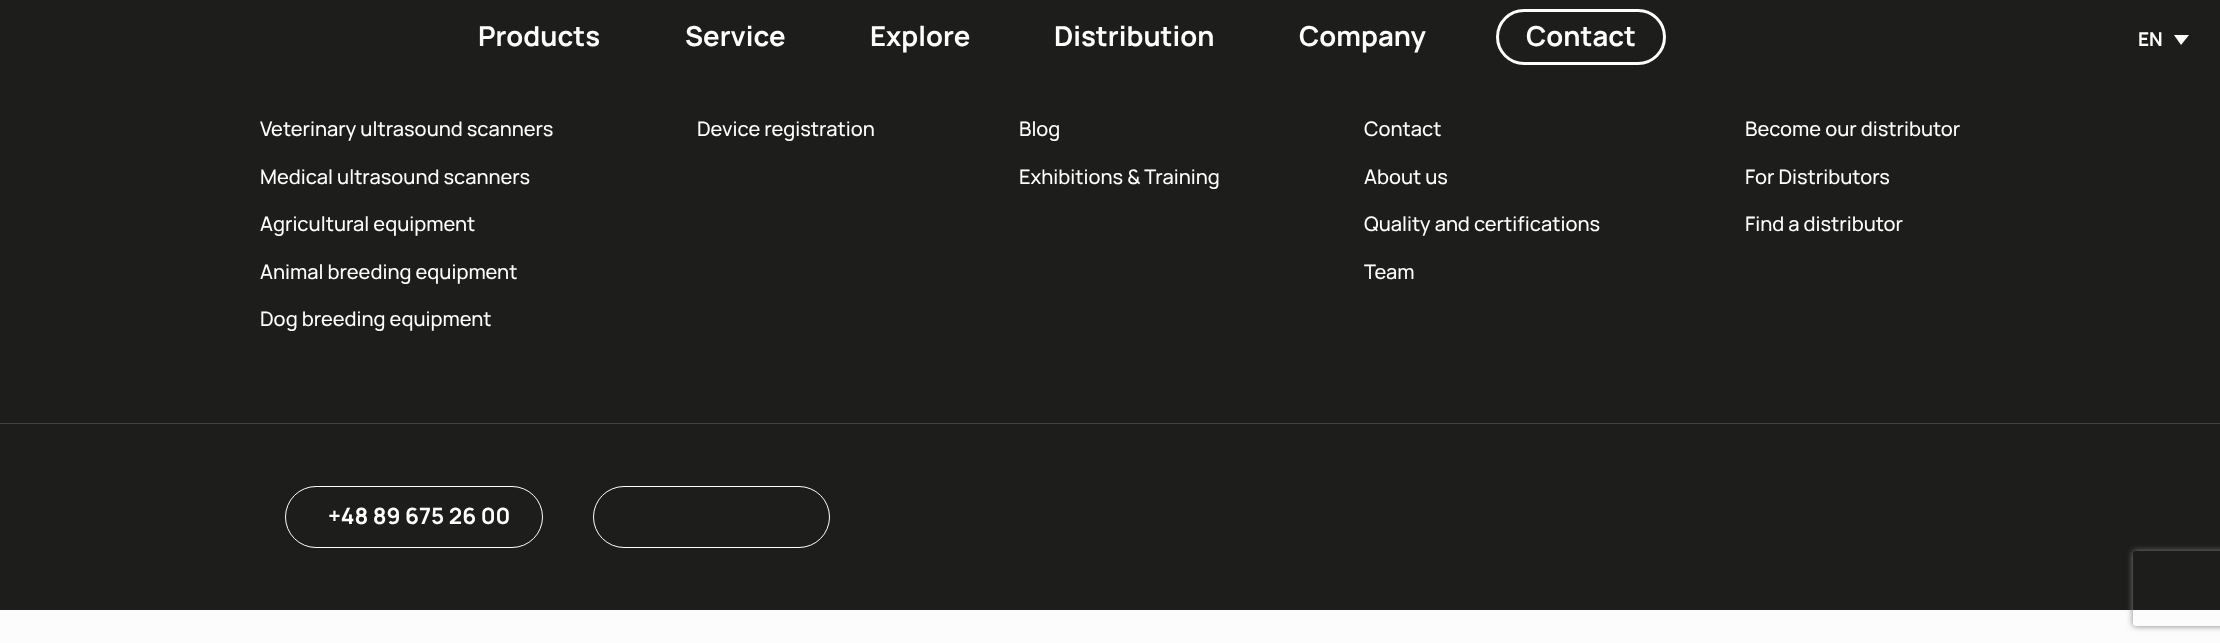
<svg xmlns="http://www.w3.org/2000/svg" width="2220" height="643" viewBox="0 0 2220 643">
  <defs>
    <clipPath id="clip1"><path d="M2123 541H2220V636H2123ZM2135.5 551H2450.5C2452 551 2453 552 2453 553.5V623.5C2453 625 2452 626 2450.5 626H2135.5C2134 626 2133 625 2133 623.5V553.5C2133 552 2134 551 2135.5 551Z" clip-rule="evenodd"/></clipPath>
  </defs>
  <rect width="100%" height="100%" fill="#1d1d1b"/>
  <rect x="1497.5" y="10.5" width="167" height="53" rx="26.5" fill="none" stroke="#fff" stroke-width="3"/>
  <path d="M2174 35H2189L2181 45Z" fill="#fff"/>
  <path d="M0 423h2220v1H0z" fill="#414140"/>
  <rect x="285.5" y="486.5" width="257" height="61" rx="30.5" fill="none" stroke="#fff"/>
  <rect x="593.5" y="486.5" width="236" height="61" rx="30.5" fill="none" stroke="#fff"/>
  <path d="M0 610h2220v33H0z" fill="#fcfcfc"/>
  <g clip-path="url(#clip1)">
    <rect x="2133" y="551" width="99" height="75" rx="2.5" fill="#808080" filter="blur(3px)"/>
  </g>
  <g font-family="Manrope" font-size="27.5" font-weight="bold" fill="#fff">
    <text x="478" y="46">Products</text>
    <text x="685" y="46">Service</text>
    <text x="870" y="46">Explore</text>
    <text x="1054" y="46">Distribution</text>
    <text x="1299" y="46">Company</text>
    <text x="1526" y="46">Contact</text>
  </g>
  <text x="2138" y="46" font-family="Manrope" font-size="19" font-weight="bold" fill="#fff">EN</text>
  <g font-family="Manrope" font-size="20" font-weight="500" fill="#fff">
    <text x="260" y="136">Veterinary ultrasound scanners</text>
    <text x="260" y="184">Medical ultrasound scanners</text>
    <text x="260" y="231">Agricultural equipment</text>
    <text x="260" y="279">Animal breeding equipment</text>
    <text x="260" y="326">Dog breeding equipment</text>
    <text x="697" y="136">Device registration</text>
    <text x="1019" y="136">Blog</text>
    <text x="1019" y="184">Exhibitions &amp; Training</text>
    <text x="1364" y="136">Contact</text>
    <text x="1364" y="184">About us</text>
    <text x="1364" y="231">Quality and certifications</text>
    <text x="1364" y="279">Team</text>
    <text x="1745" y="136">Become our distributor</text>
    <text x="1745" y="184">For Distributors</text>
    <text x="1745" y="231">Find a distributor</text>
  </g>
  <text x="328" y="524" font-family="Manrope" font-size="22.5" font-weight="bold" fill="#fff">+48 89 675 26 00</text>
</svg>
